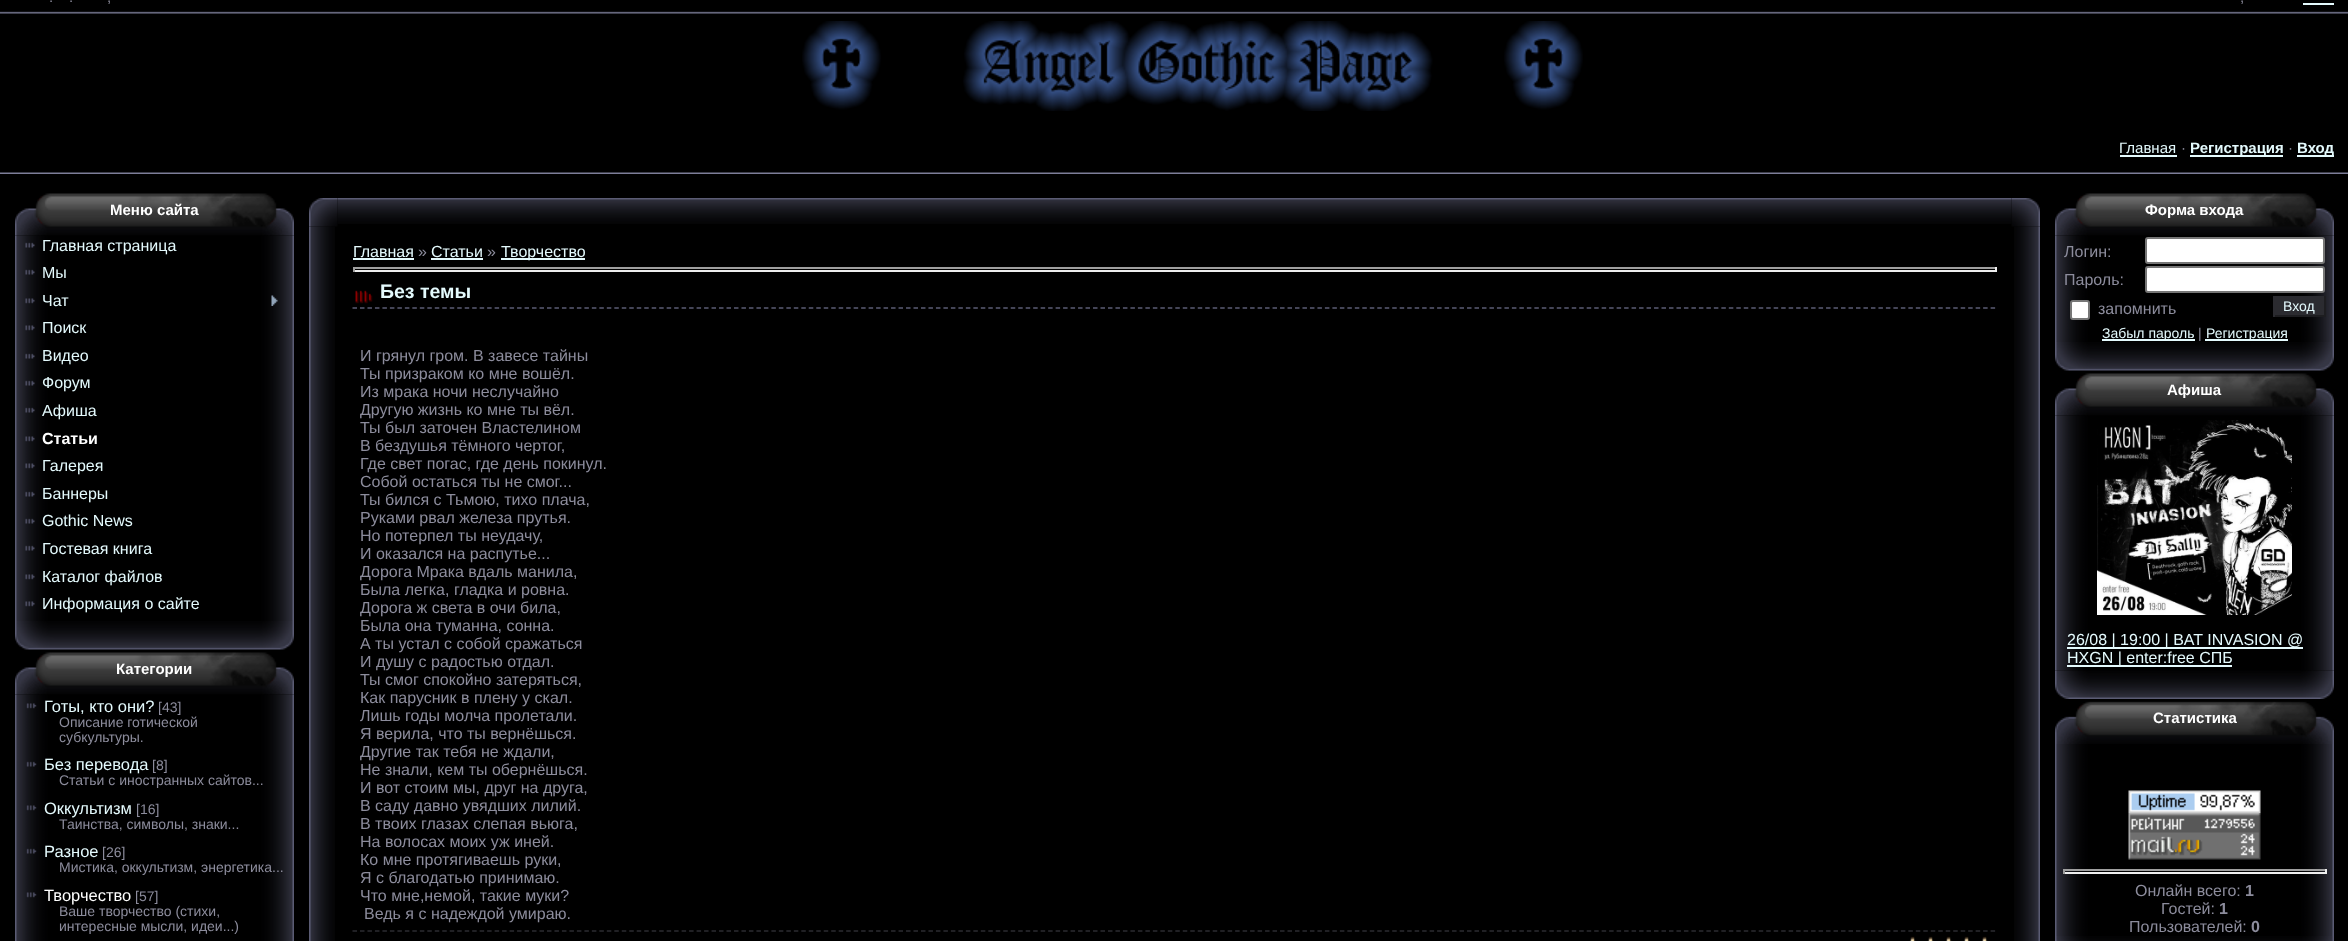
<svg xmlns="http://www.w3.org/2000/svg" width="2348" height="941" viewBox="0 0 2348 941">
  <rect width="100%" height="100%" fill="#000"/>
  <image x="0" y="11" width="2348" height="163" href="img/1.png"/>
  <path d="M2303 3h31v2H2303z" fill="#e4fafd"/>
  <image x="802" y="21" width="781" height="90" href="img/2.png"/>
  <path d="M2120 155h57v2H2120z" fill="#e4fafd"/>
  <path d="M2190 155h93v2H2190z" fill="#e4fafd"/>
  <path d="M2297 155h37v2H2297z" fill="#e4fafd"/>
  <image x="15" y="191" width="279" height="45" href="img/3.png"/>
  <image x="15" y="235" width="279" height="386" href="img/4.png"/>
  <image x="25" y="242" width="10" height="6" href="img/5.png"/>
  <image x="25" y="269" width="10" height="6" href="img/6.png"/>
  <image x="25" y="298" width="10" height="6" href="img/7.png"/>
  <image x="271" y="295" width="7" height="11" href="img/8.png"/>
  <image x="25" y="325" width="10" height="6" href="img/7.png"/>
  <image x="25" y="353" width="10" height="6" href="img/9.png"/>
  <image x="25" y="380" width="10" height="6" href="img/9.png"/>
  <image x="25" y="407" width="10" height="6" href="img/9.png"/>
  <image x="25" y="436" width="10" height="6" href="img/10.png"/>
  <image x="25" y="463" width="10" height="6" href="img/10.png"/>
  <image x="25" y="491" width="10" height="6" href="img/11.png"/>
  <image x="25" y="518" width="10" height="6" href="img/11.png"/>
  <image x="25" y="545" width="10" height="6" href="img/11.png"/>
  <image x="25" y="574" width="10" height="6" href="img/10.png"/>
  <image x="25" y="601" width="10" height="6" href="img/10.png"/>
  <image x="15" y="621" width="279" height="29" href="img/12.png"/>
  <image x="15" y="650" width="279" height="45" href="img/3.png"/>
  <image x="15" y="694" width="279" height="247" href="img/13.png"/>
  <image x="26" y="703" width="11" height="6" href="img/14.png"/>
  <image x="26" y="761" width="11" height="6" href="img/15.png"/>
  <image x="26" y="805" width="11" height="6" href="img/16.png"/>
  <image x="26" y="848" width="11" height="6" href="img/17.png"/>
  <image x="26" y="892" width="11" height="6" href="img/18.png"/>
  <image x="337" y="198" width="1675" height="26" href="img/20.png"/>
  <image x="309" y="226" width="26" height="715" href="img/22.png"/>
  <image x="309" y="198" width="29" height="29" href="img/19.png"/>
  <image x="2014" y="226" width="26" height="715" href="img/26.png"/>
  <image x="2011" y="198" width="29" height="29" href="img/21.png"/>
  <path d="M353 258h61v2H353z" fill="#e4fafd"/>
  <path d="M431 258h52v2H431z" fill="#e4fafd"/>
  <path d="M501 258h84v2H501z" fill="#e4fafd"/>
  <path d="M353 267h1644v2H353z" fill="#9f9f9f"/>
  <path d="M1995 267h2v5H1995z" fill="#eee"/>
  <path d="M353 270h1644v2H353z" fill="#eee"/>
  <path d="M353 267h2v5H353z" fill="#9f9f9f"/>
  <image x="355" y="290" width="18" height="14" href="img/23.png"/>
  <path d="M352.5 308H1996.5" fill="none" stroke="#5b5c74" stroke-width="1.5" stroke-dasharray="4.5 2.98"/>
  <path d="M352.5 931H1996.5" fill="none" stroke="#2b2b30" stroke-width="1.5" stroke-dasharray="4.5 2.98"/>
  <image x="1910" y="937" width="77" height="4" href="img/24.png"/>
  <image x="1909" y="936" width="79" height="5" href="img/25.png"/>
  <image x="2055" y="191" width="279" height="45" href="img/27.png"/>
  <image x="2055" y="235" width="279" height="107" href="img/28.png"/>
  <rect x="2146" y="238" width="178" height="25" rx="2" fill="#fff" stroke="#767676" stroke-width="2"/>
  <rect x="2146" y="267" width="178" height="25" rx="2" fill="#fff" stroke="#767676" stroke-width="2"/>
  <rect x="2071" y="301" width="18" height="18" rx="2" fill="#fff" stroke="#767676" stroke-width="2"/>
  <path d="M2275 296h49v19H2275z" fill="#2b2b30"/>
  <path d="M2324 296h2v21H2324z" fill="#1d1d20"/>
  <path d="M2273 315h52v2H2273z" fill="#1d1d20"/>
  <path d="M2273 296h2v21H2273z" fill="#2b2b30"/>
  <path d="M2102 339h93v2H2102z" fill="#e4fafd"/>
  <path d="M2205 339h83v2H2205z" fill="#e4fafd"/>
  <image x="2055" y="342" width="279" height="29" href="img/29.png"/>
  <image x="2055" y="371" width="279" height="45" href="img/27.png"/>
  <image x="2055" y="415" width="279" height="256" href="img/30.png"/>
  <image x="2097" y="420" width="195" height="195" href="img/31.png"/>
  <path d="M2067 647h236v2H2067z" fill="#e4fafd"/>
  <path d="M2067 665h165v2H2067z" fill="#e4fafd"/>
  <image x="2055" y="670" width="279" height="29" href="img/32.png"/>
  <image x="2055" y="699" width="279" height="45" href="img/33.png"/>
  <image x="2055" y="744" width="279" height="192" href="img/34.png"/>
  <image x="2128" y="790" width="133" height="23" href="img/35.png"/>
  <image x="2128" y="813" width="133" height="47" href="img/36.png"/>
  <path d="M2063 869h264v2H2063z" fill="#9f9f9f"/>
  <path d="M2325 869h2v5H2325z" fill="#eee"/>
  <path d="M2063 872h264v2H2063z" fill="#eee"/>
  <path d="M2063 869h2v5H2063z" fill="#9f9f9f"/>
  <image x="2055" y="936" width="279" height="5" href="img/37.png"/>
  <g font-family="Liberation Sans" font-size="15" fill="#8c8c9c">
    <text x="49" y="2">.</text>
    <text x="69" y="2">.</text>
    <text x="107" y="2">,</text>
    <text x="2240" y="2">,</text>
  </g>
  <text x="2119" y="153" font-family="Liberation Sans" font-size="15" fill="#e4fafd">Главная</text>
  <text x="2181" y="153" font-family="Liberation Sans" font-size="15" fill="#8c8c9c">·</text>
  <text x="2190" y="153" font-family="Liberation Sans" font-size="15" font-weight="bold" fill="#e4fafd">Регистрация</text>
  <text x="2288" y="153" font-family="Liberation Sans" font-size="15" fill="#8c8c9c">·</text>
  <text x="2297" y="153" font-family="Liberation Sans" font-size="15" font-weight="bold" fill="#e4fafd">Вход</text>
  <text x="110" y="215" font-family="Liberation Sans" font-size="15" font-weight="bold" fill="#fff">Меню сайта</text>
  <g font-family="Liberation Sans" font-size="16" fill="#e4fafd">
    <text x="42" y="251">Главная страница</text>
    <text x="42" y="278">Мы</text>
    <text x="42" y="306">Чат</text>
    <text x="42" y="333">Поиск</text>
    <text x="42" y="361">Видео</text>
    <text x="42" y="388">Форум</text>
    <text x="42" y="416">Афиша</text>
  </g>
  <text x="42" y="444" font-family="Liberation Sans" font-size="16" font-weight="bold" fill="#fff">Статьи</text>
  <g font-family="Liberation Sans" font-size="16" fill="#e4fafd">
    <text x="42" y="471">Галерея</text>
    <text x="42" y="499">Баннеры</text>
    <text x="42" y="526">Gothic News</text>
    <text x="42" y="554">Гостевая книга</text>
    <text x="42" y="582">Каталог файлов</text>
    <text x="42" y="609">Информация о сайте</text>
  </g>
  <text x="116" y="674" font-family="Liberation Sans" font-size="15" font-weight="bold" fill="#fff">Категории</text>
  <text x="44" y="712" font-family="Liberation Sans" font-size="16.5" fill="#e4fafd">Готы, кто они?</text>
  <g font-family="Liberation Sans" font-size="14" fill="#8c8c9c">
    <text x="158" y="712">[43]</text>
    <text x="59" y="727">Описание готической</text>
    <text x="59" y="742">субкультуры.</text>
  </g>
  <text x="44" y="770" font-family="Liberation Sans" font-size="16.5" fill="#e4fafd">Без перевода</text>
  <g font-family="Liberation Sans" font-size="14" fill="#8c8c9c">
    <text x="152" y="770">[8]</text>
    <text x="59" y="785">Статьи с иностранных сайтов...</text>
  </g>
  <text x="44" y="814" font-family="Liberation Sans" font-size="16.5" fill="#e4fafd">Оккультизм</text>
  <g font-family="Liberation Sans" font-size="14" fill="#8c8c9c">
    <text x="136" y="814">[16]</text>
    <text x="59" y="829">Таинства, символы, знаки...</text>
  </g>
  <text x="44" y="857" font-family="Liberation Sans" font-size="16.5" fill="#e4fafd">Разное</text>
  <g font-family="Liberation Sans" font-size="14" fill="#8c8c9c">
    <text x="102" y="857">[26]</text>
    <text x="59" y="872">Мистика, оккультизм, энергетика...</text>
  </g>
  <text x="44" y="901" font-family="Liberation Sans" font-size="16.5" fill="#fff">Творчество</text>
  <g font-family="Liberation Sans" font-size="14" fill="#8c8c9c">
    <text x="135" y="901">[57]</text>
    <text x="59" y="916">Ваше творчество (стихи,</text>
    <text x="59" y="931">интересные мысли, идеи...)</text>
  </g>
  <text x="353" y="257" font-family="Liberation Sans" font-size="16" fill="#e4fafd">Главная</text>
  <text x="418" y="257" font-family="Liberation Sans" font-size="16" fill="#8c8c9c">»</text>
  <text x="431" y="257" font-family="Liberation Sans" font-size="16" fill="#e4fafd">Статьи</text>
  <text x="487" y="257" font-family="Liberation Sans" font-size="16" fill="#8c8c9c">»</text>
  <text x="501" y="257" font-family="Liberation Sans" font-size="16" fill="#e4fafd">Творчество</text>
  <text x="380" y="298" font-family="Liberation Sans" font-size="19.5" font-weight="bold" fill="#e4fafd">Без темы</text>
  <g font-family="Liberation Sans" font-size="16" fill="#8c8c9c">
    <text x="360" y="361">И грянул гром. В завесе тайны</text>
    <text x="360" y="379">Ты призраком ко мне вошёл.</text>
    <text x="360" y="397">Из мрака ночи неслучайно</text>
    <text x="360" y="415">Другую жизнь ко мне ты вёл.</text>
    <text x="360" y="433">Ты был заточен Властелином</text>
    <text x="360" y="451">В бездушья тёмного чертог,</text>
    <text x="360" y="469">Где свет погас, где день покинул.</text>
    <text x="360" y="487">Собой остаться ты не смог...</text>
    <text x="360" y="505">Ты бился с Тьмою, тихо плача,</text>
    <text x="360" y="523">Руками рвал железа прутья.</text>
    <text x="360" y="541">Но потерпел ты неудачу,</text>
    <text x="360" y="559">И оказался на распутье...</text>
    <text x="360" y="577">Дорога Мрака вдаль манила,</text>
    <text x="360" y="595">Была легка, гладка и ровна.</text>
    <text x="360" y="613">Дорога ж света в очи била,</text>
    <text x="360" y="631">Была она туманна, сонна.</text>
    <text x="360" y="649">А ты устал с собой сражаться</text>
    <text x="360" y="667">И душу с радостью отдал.</text>
    <text x="360" y="685">Ты смог спокойно затеряться,</text>
    <text x="360" y="703">Как парусник в плену у скал.</text>
    <text x="360" y="721">Лишь годы молча пролетали.</text>
    <text x="360" y="739">Я верила, что ты вернёшься.</text>
    <text x="360" y="757">Другие так тебя не ждали,</text>
    <text x="360" y="775">Не знали, кем ты обернёшься.</text>
    <text x="360" y="793">И вот стоим мы, друг на друга,</text>
    <text x="360" y="811">В саду давно увядших лилий.</text>
    <text x="360" y="829">В твоих глазах слепая вьюга,</text>
    <text x="360" y="847">На волосах моих уж иней.</text>
    <text x="360" y="865">Ко мне протягиваешь руки,</text>
    <text x="360" y="883">Я с благодатью принимаю.</text>
    <text x="360" y="901">Что мне,немой, такие муки?</text>
    <text x="364" y="919">Ведь я с надеждой умираю.</text>
  </g>
  <text x="2145" y="215" font-family="Liberation Sans" font-size="15" font-weight="bold" fill="#fff">Форма входа</text>
  <g font-family="Liberation Sans" font-size="16" fill="#8c8c9c">
    <text x="2064" y="257">Логин:</text>
    <text x="2064" y="285">Пароль:</text>
    <text x="2098" y="314">запомнить</text>
  </g>
  <g font-family="Liberation Sans" font-size="14" fill="#e4fafd">
    <text x="2283" y="311">Вход</text>
    <text x="2102" y="338">Забыл пароль</text>
  </g>
  <text x="2198" y="338" font-family="Liberation Sans" font-size="14" fill="#8c8c9c">|</text>
  <text x="2206" y="338" font-family="Liberation Sans" font-size="14" fill="#e4fafd">Регистрация</text>
  <text x="2167" y="395" font-family="Liberation Sans" font-size="15" font-weight="bold" fill="#fff">Афиша</text>
  <g font-family="Liberation Sans" font-size="16" fill="#e4fafd">
    <text x="2067" y="645">26/08 | 19:00 | BAT INVASION @</text>
    <text x="2067" y="663">HXGN | enter:free СПБ</text>
  </g>
  <text x="2153" y="723" font-family="Liberation Sans" font-size="15" font-weight="bold" fill="#fff">Статистика</text>
  <text x="2135" y="896" font-family="Liberation Sans" font-size="16" fill="#8c8c9c">Онлайн всего:</text>
  <text x="2245" y="896" font-family="Liberation Sans" font-size="16" font-weight="bold" fill="#8c8c9c">1</text>
  <text x="2161" y="914" font-family="Liberation Sans" font-size="16" fill="#8c8c9c">Гостей:</text>
  <text x="2219" y="914" font-family="Liberation Sans" font-size="16" font-weight="bold" fill="#8c8c9c">1</text>
  <text x="2129" y="932" font-family="Liberation Sans" font-size="16" fill="#8c8c9c">Пользователей:</text>
  <text x="2251" y="932" font-family="Liberation Sans" font-size="16" font-weight="bold" fill="#8c8c9c">0</text>
</svg>
